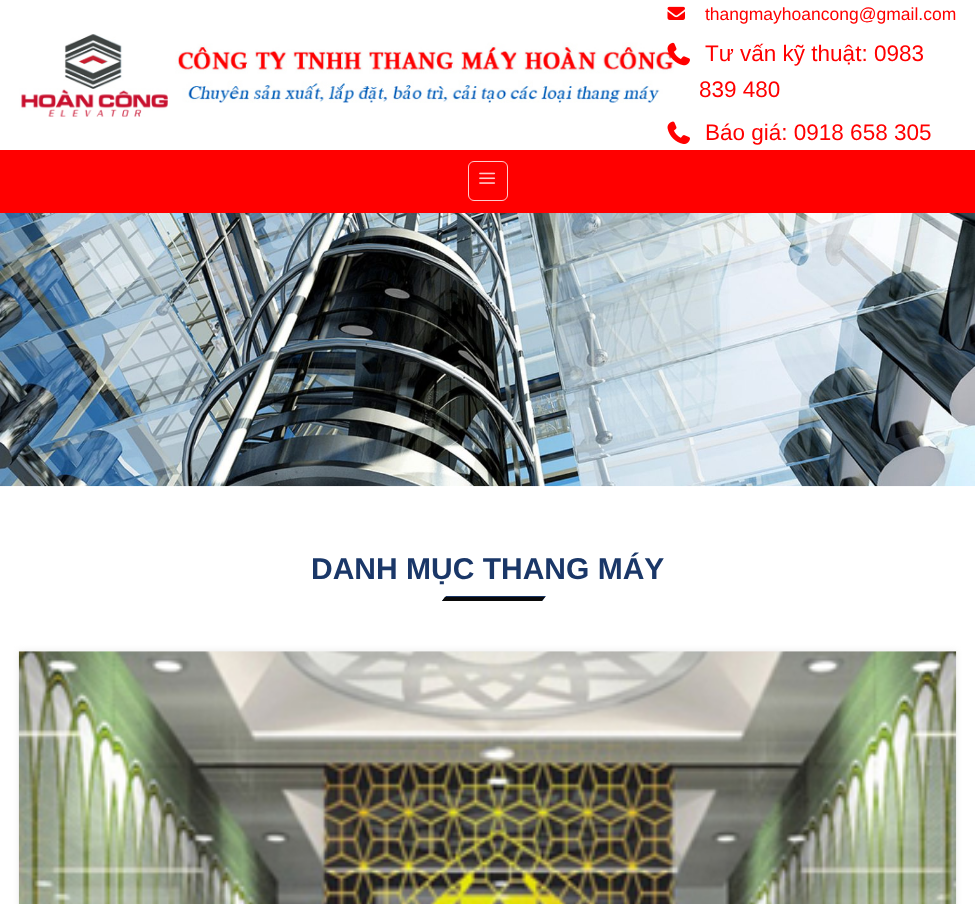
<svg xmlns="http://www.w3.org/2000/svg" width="975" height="904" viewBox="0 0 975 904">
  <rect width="100%" height="100%" fill="#fff"/>
  <image x="19" y="34" width="655" height="83" href="img/1.png"/>
  <image x="667" y="6" width="18" height="14" href="img/2.png"/>
  <image x="667" y="42" width="23" height="24" href="img/3.png"/>
  <image x="667" y="121" width="23" height="23" href="img/4.png"/>
  <path d="M0 150h975v63H0z" fill="#f00"/>
  <rect x="468.5" y="161.5" width="39" height="39" rx="5.5" fill="none" stroke="#fcc"/>
  <image x="479" y="172" width="17" height="12" href="img/5.png"/>
  <image x="0" y="213" width="975" height="274" href="img/6.png"/>
  <path d="M446 596H546L542 601H442Z" fill="#1a3768"/>
  <path d="M445 597H545L542 601H442Z" fill="#0a0a0a"/>
  <path d="M19 651h937v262H19z" fill="#e9e9e9" filter="blur(3px)"/>
  <image x="18" y="651" width="939" height="253" href="img/7.png"/>
  <text x="705" y="20" font-family="Liberation Sans" font-size="17.5" fill="#f00">thangmayhoancong@gmail.com</text>
  <g font-family="Liberation Sans" font-size="22.5" fill="#f00">
    <text x="705" y="61">Tư vấn kỹ thuật: 0983</text>
    <text x="699" y="97">839 480</text>
    <text x="705" y="140">Báo giá: 0918 658 305</text>
  </g>
  <text x="311" y="579" font-family="Liberation Sans" font-size="30" font-weight="bold" fill="#1a3768">DANH MỤC THANG MÁY</text>
</svg>
